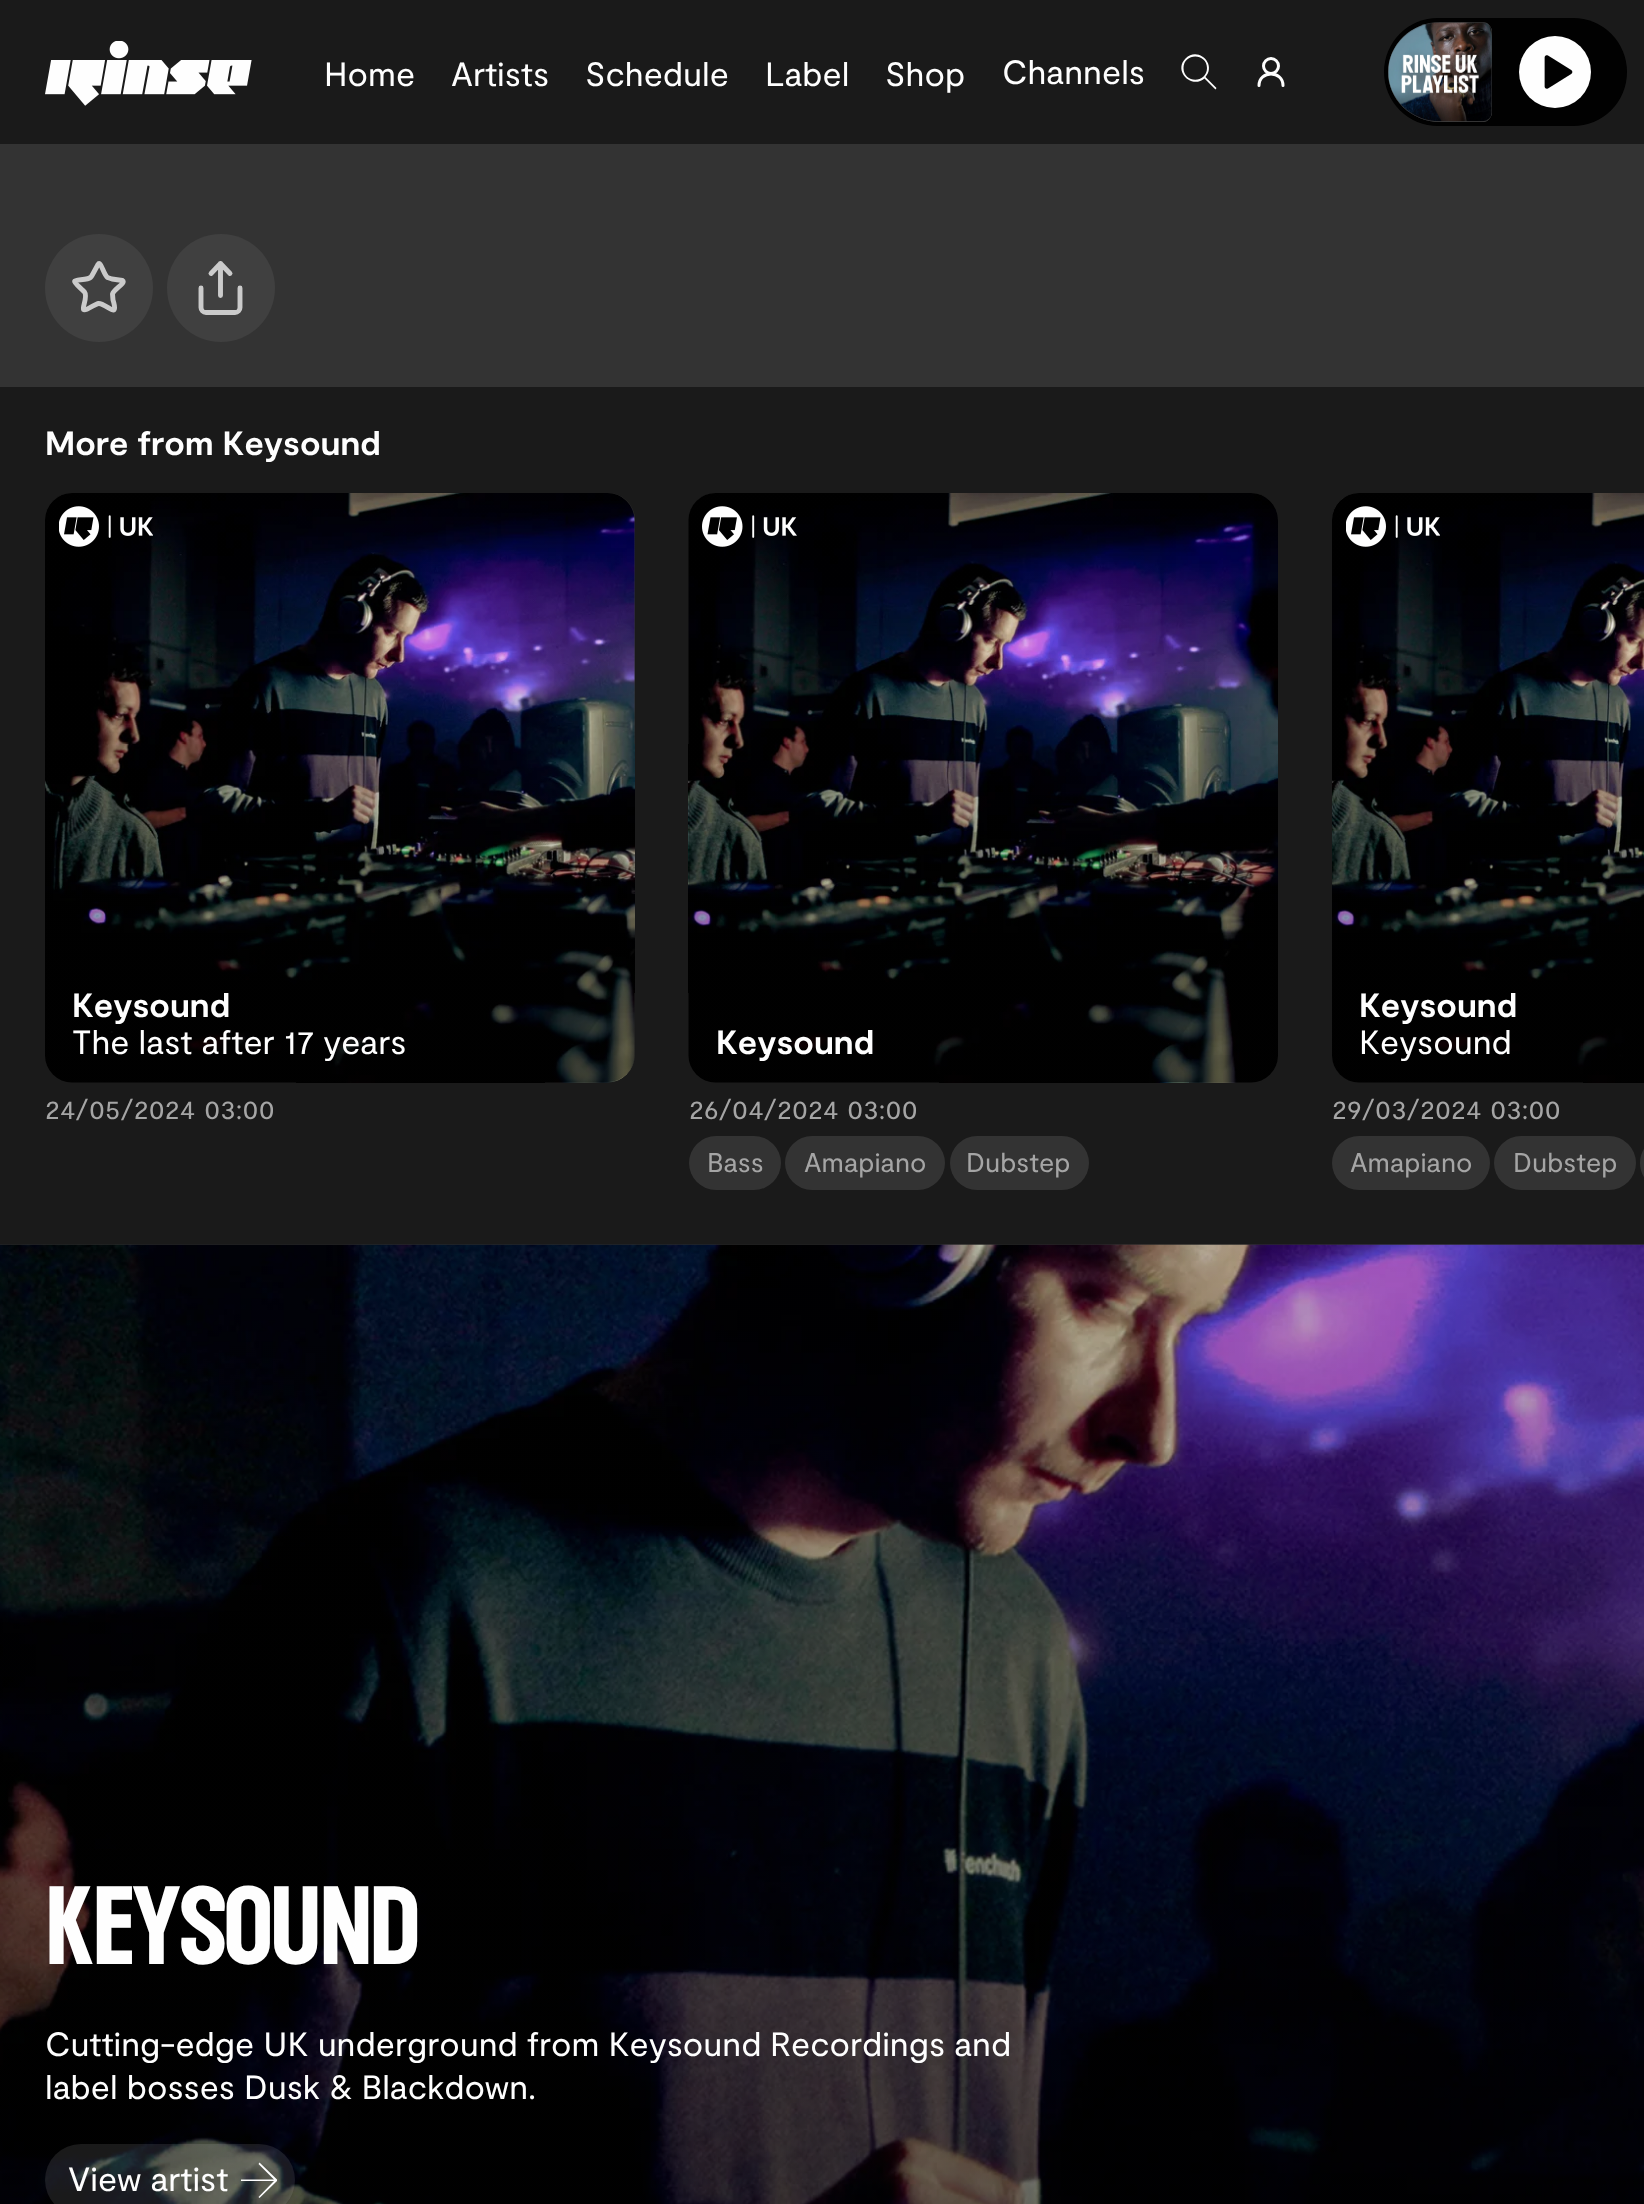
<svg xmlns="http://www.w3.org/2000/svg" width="1644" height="2204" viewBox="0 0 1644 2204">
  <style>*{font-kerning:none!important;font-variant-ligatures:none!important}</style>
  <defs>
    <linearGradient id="g1" gradientUnits="userSpaceOnUse" x1="340" y1="493" x2="340" y2="1082"><stop offset="0" stop-color="#010101" stop-opacity="0.12"/><stop offset="0.3" stop-color="#010101" stop-opacity="0.06"/><stop offset="1" stop-color="#010101" stop-opacity="0.45"/></linearGradient>
    <linearGradient id="g2" gradientUnits="userSpaceOnUse" x1="983" y1="493" x2="983" y2="1082"><stop offset="0" stop-color="#010101" stop-opacity="0.12"/><stop offset="0.3" stop-color="#010101" stop-opacity="0.06"/><stop offset="1" stop-color="#010101" stop-opacity="0.45"/></linearGradient>
    <linearGradient id="g3" gradientUnits="userSpaceOnUse" x1="1627" y1="493" x2="1627" y2="1082"><stop offset="0" stop-color="#010101" stop-opacity="0.12"/><stop offset="0.3" stop-color="#010101" stop-opacity="0.06"/><stop offset="1" stop-color="#010101" stop-opacity="0.45"/></linearGradient>
    <linearGradient id="g4" gradientUnits="userSpaceOnUse" x1="822" y1="1244" x2="822" y2="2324"><stop offset="0" stop-color="#010101" stop-opacity="0.22"/><stop offset="0.5" stop-color="#010101" stop-opacity="0.38"/><stop offset="1" stop-color="#010101" stop-opacity="0.56"/></linearGradient>
  </defs>
  <rect width="100%" height="100%" fill="#1a1a1a"/>
  <image x="45" y="41" width="207" height="65" href="img/1.png"/>
  <path d="M1216.5 88L1205.5 77C1217 64 1198 46 1185.5 58.5C1173 71 1191.5 89.5 1204.5 78.5L1215.5 89.5ZM1183.5 68C1183.5 52.5 1207 52.5 1207 68C1207 83.5 1183.5 83.5 1183.5 68Z" fill="#fefefe"/>
  <circle cx="1271" cy="66" r="7.5" fill="none" stroke="#fefefe" stroke-width="3"/>
  <path d="M1283 85.5C1283 70 1259 70 1259 85.5" fill="none" stroke="#fefefe" stroke-width="3" stroke-linecap="round" stroke-linejoin="round"/>
  <rect x="1384" y="18" width="243" height="108" rx="54" fill="#010101"/>
  <path d="M1440 22H1483C1488 22 1492 27 1492 32V112C1492 117 1488 122 1483 122H1440C1411 122 1388 99 1388 72C1388 45 1411 22 1440 22Z" fill="#333"/>
  <path d="M1486 23C1489 24 1492 28 1492 32V112C1492 117 1488 122 1483 122H1440C1411 122 1388 99 1388 72C1388 47 1408 26 1433 23Z" fill="#404040"/>
  <image x="1388" y="22" width="104" height="100" href="img/2.png"/>
  <circle cx="1555" cy="72" r="36" fill="#fefefe"/>
  <image x="1544" y="55" width="29" height="34" href="img/3.png"/>
  <path d="M0 144h1644v243H0z" fill="#333"/>
  <circle cx="99" cy="288" r="54" fill="#404040"/>
  <path d="M98 264.5C100.5 259.5 103.5 274.5 107.5 277.5L112 279L122.5 280.5C126.5 282.5 113.5 289.5 112.5 294L113 300C113.5 301.5 116 309.5 113.5 310C111 310.5 103 303 98.5 303.5C95 304 85.5 311.5 83.5 309.5C82 307.5 88 296.5 84.5 292C83 290 74 283 74.5 281.5C75.5 278.5 89.5 281.5 92 275.5Z" fill="none" stroke="#cbcbcb" stroke-width="4.9" stroke-linecap="round" stroke-linejoin="round"/>
  <circle cx="221" cy="288" r="54" fill="#404040"/>
  <path d="M201 288V307.5C201 310 203 312.5 206 312.5H235C238 312.5 240 310 240 307.5V288M230 273.5L220.5 263.5L211 273.5M220.5 263.5V295.5" fill="none" stroke="#cbcbcb" stroke-width="4.9" stroke-linecap="round" stroke-linejoin="round"/>
  <rect x="45" y="493" width="590" height="589" rx="27" fill="#333"/>
  <image x="45" y="493" width="590" height="590" href="img/4.png"/>
  <rect x="45" y="493" width="590" height="589" rx="27" fill="url(#g1)"/>
  <image x="59" y="506" width="94" height="41" href="img/5.png"/>
  <rect x="689" y="493" width="589" height="589" rx="27" fill="#333"/>
  <image x="688" y="493" width="590" height="590" href="img/6.png"/>
  <rect x="689" y="493" width="589" height="589" rx="27" fill="url(#g2)"/>
  <image x="702" y="506" width="95" height="41" href="img/7.png"/>
  <rect x="689" y="1136" width="92" height="54" rx="27" fill="#333"/>
  <rect x="785" y="1136" width="160" height="54" rx="27" fill="#333"/>
  <rect x="950" y="1136" width="139" height="54" rx="27" fill="#333"/>
  <path d="M1359 493H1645V1082H1359C1344 1082 1332 1070 1332 1055V520C1332 505 1344 493 1359 493Z" fill="#333"/>
  <image x="1332" y="493" width="312" height="590" href="img/8.png"/>
  <path d="M1359 493H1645V1082H1359C1344 1082 1332 1070 1332 1055V520C1332 505 1344 493 1359 493Z" fill="url(#g3)"/>
  <image x="1346" y="506" width="94" height="41" href="img/9.png"/>
  <rect x="1332" y="1136" width="158" height="54" rx="27" fill="#333"/>
  <rect x="1494" y="1136" width="142" height="54" rx="27" fill="#333"/>
  <path d="M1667 1136H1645V1190H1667C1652 1190 1640 1178 1640 1163C1640 1148 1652 1136 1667 1136Z" fill="#333"/>
  <path d="M0 1244h1644v1H0z" fill="#333"/>
  <image x="0" y="1244" width="1644" height="960" href="img/10.png"/>
  <path d="M0 1244h1644v960H0z" fill="url(#g4)"/>
  <rect x="45" y="2144" width="250" height="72" rx="36" fill="#fefefe1a"/>
  <path d="M241 2181V2179.5H274L258.5 2164L259.5 2162.5L277 2179.5V2181L259.5 2198L258.5 2197L274 2181Z" fill="#fefefe"/>
  <g font-family="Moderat" font-size="33.75" fill="#fefefe">
    <text x="324" y="86">Home</text>
    <text x="451" y="86">Artists</text>
    <text x="585" y="86">Schedule</text>
    <text x="765" y="86">Label</text>
    <text x="885" y="86">Shop</text>
    <text x="1002" y="84">Channels</text>
  </g>
  <g font-family="Moderat" font-size="33.75" font-weight="bold" fill="#fefefe">
    <text x="45" y="455">More from Keysound</text>
    <text x="72" y="1017">Keysound</text>
  </g>
  <text x="72" y="1054" font-family="Moderat" font-size="33.75" fill="#fefefe">The last after 17 years</text>
  <g font-family="Moderat" font-size="27" fill="#a5a5a5">
    <text x="45" y="1119">24/05/2024</text>
    <text x="204" y="1119">03:00</text>
  </g>
  <text x="716" y="1054" font-family="Moderat" font-size="33.75" font-weight="bold" fill="#fefefe">Keysound</text>
  <g font-family="Moderat" font-size="27" fill="#a5a5a5">
    <text x="689" y="1119">26/04/2024</text>
    <text x="847" y="1119">03:00</text>
    <text x="707" y="1172">Bass</text>
    <text x="804" y="1172">Amapiano</text>
    <text x="966" y="1172">Dubstep</text>
  </g>
  <text x="1359" y="1017" font-family="Moderat" font-size="33.75" font-weight="bold" fill="#fefefe">Keysound</text>
  <text x="1359" y="1054" font-family="Moderat" font-size="33.75" fill="#fefefe">Keysound</text>
  <g font-family="Moderat" font-size="27" fill="#a5a5a5">
    <text x="1332" y="1119">29/03/2024</text>
    <text x="1490" y="1119">03:00</text>
    <text x="1350" y="1172">Amapiano</text>
    <text x="1513" y="1172">Dubstep</text>
  </g>
  <text x="45" y="1964" font-family="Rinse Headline" font-size="108" letter-spacing="-2.25" fill="#fefefe">KEYSOUND</text>
  <g font-family="Moderat" font-size="33.75" fill="#fefefe">
    <text x="45" y="2056">Cutting-edge UK underground from Keysound</text>
    <text x="770" y="2056">Recordings and</text>
    <text x="45" y="2099">label bosses Dusk &amp; Blackdown.</text>
    <text x="68" y="2191">View artist</text>
  </g>
</svg>
